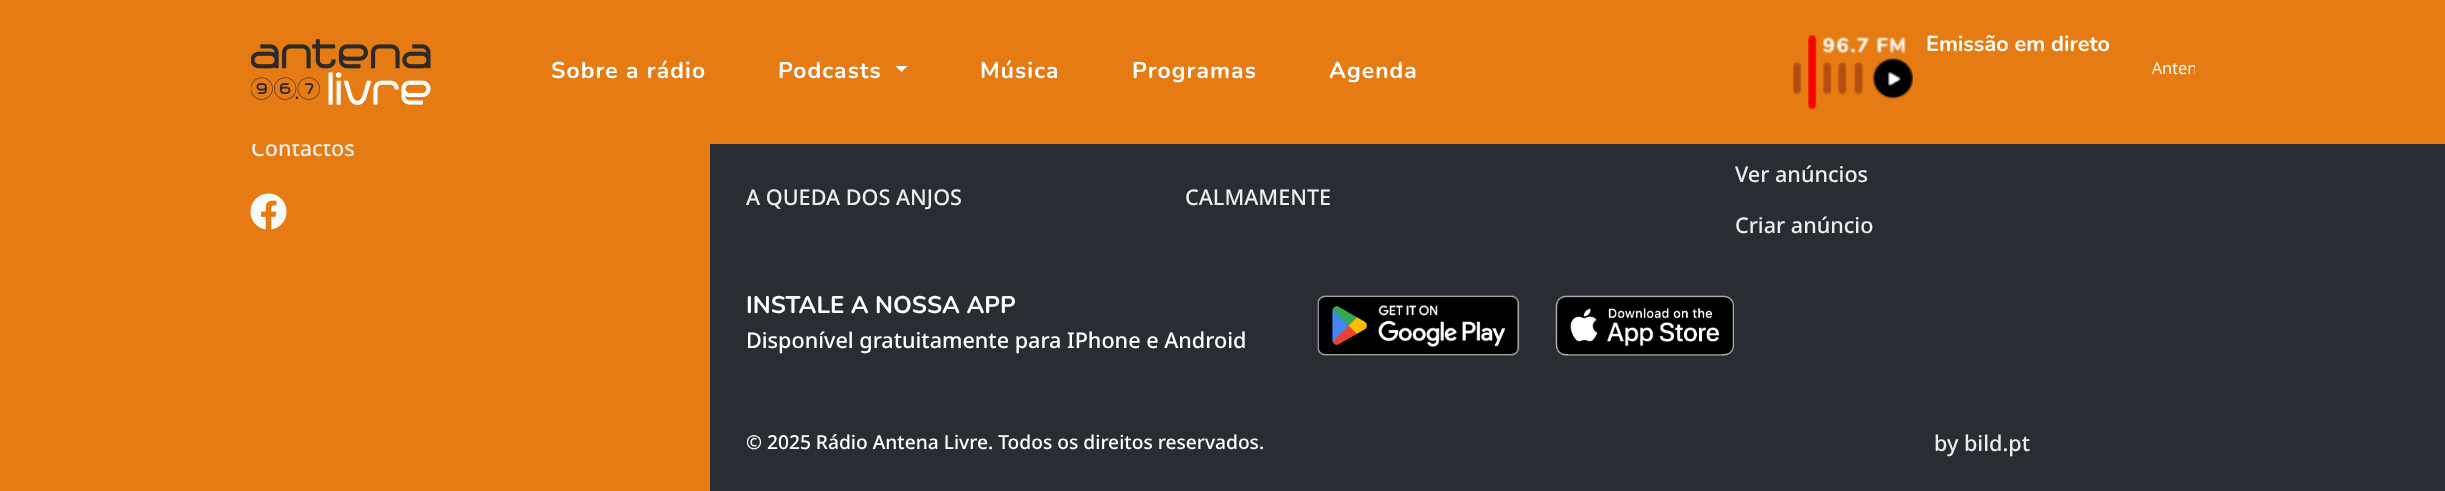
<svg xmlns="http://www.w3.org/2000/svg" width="2445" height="491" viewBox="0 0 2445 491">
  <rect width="100%" height="100%" fill="#e67b13"/>
  <image x="251" y="39" width="180" height="66" href="img/1.png"/>
  <image x="1793" y="34" width="120" height="76" href="img/2.png"/>
  <image x="2152" y="62" width="43" height="13" href="img/3.png"/>
  <path d="M895.5 66H907.5L901.5 72Z" fill="#fff"/>
  <path d="M710 144h1735v347H710z" fill="#292d33"/>
  <image x="250" y="193" width="37" height="37" href="img/4.png"/>
  <image x="1317" y="295" width="203" height="61" href="img/5.png"/>
  <image x="1555" y="295" width="179" height="61" href="img/6.png"/>
  <text x="1926" y="51" font-family="Nunito" font-size="21.6" font-weight="bold" fill="#fff">Emissão em direto</text>
  <g font-family="Nunito" font-size="22.75" font-weight="bold" letter-spacing="1.1" fill="#fff">
    <text x="551" y="78">Sobre a rádio</text>
    <text x="778" y="78">Podcasts</text>
    <text x="980" y="78">Música</text>
    <text x="1132" y="78">Programas</text>
    <text x="1329" y="78">Agenda</text>
  </g>
  <text x="251" y="156" font-family="Noto Sans" font-size="21.6" font-weight="500" fill="#eee">Contactos</text>
  <path d="M252 140h75v4H252z" fill="#e67b13"/>
  <g font-family="Noto Sans" font-size="21.6" font-weight="500" fill="#eee">
    <text x="746" y="205">A QUEDA DOS ANJOS</text>
    <text x="1185" y="205">CALMAMENTE</text>
    <text x="1735" y="182">Ver anúncios</text>
    <text x="1735" y="233">Criar anúncio</text>
  </g>
  <text x="746" y="313" font-family="Nunito" font-size="24" font-weight="bold" fill="#fff">INSTALE A NOSSA APP</text>
  <text x="746" y="348" font-family="Noto Sans" font-size="21.6" font-weight="500" fill="#fff">Disponível gratuitamente para IPhone e Android</text>
  <text x="746" y="449" font-family="Noto Sans" font-size="19.2" font-weight="500" fill="#fff">© 2025 Rádio Antena Livre. Todos os direitos reservados.</text>
  <text x="1934" y="451" font-family="Noto Sans" font-size="21.6" font-weight="500" fill="#eee">by bild.pt</text>
</svg>
